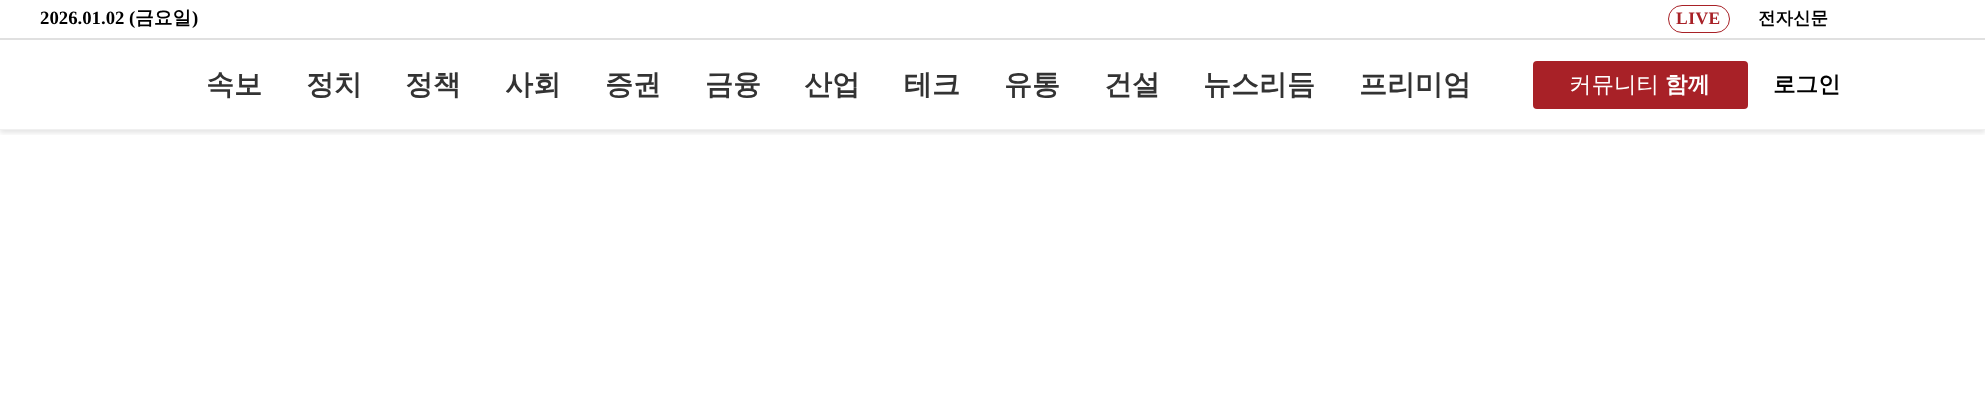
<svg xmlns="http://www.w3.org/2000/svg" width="1985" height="406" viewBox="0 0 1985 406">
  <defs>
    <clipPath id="clip1"><path d="M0 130h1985v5H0z"/></clipPath>
  </defs>
  <rect width="100%" height="100%" fill="#fff"/>
  <g clip-path="url(#clip1)">
    <path d="M0 3h1985v130H0z" fill="#0000001a" filter="blur(2.5px)"/>
  </g>
  <path d="M0 38h1985v2H0z" fill="#e0e0e0"/>
  <rect x="1668.5" y="5.5" width="61" height="27" rx="13.5" fill="none" stroke="#a82127"/>
  <path d="M0 129h1985v1H0z" fill="#f0f0f0"/>
  <rect x="1533" y="61" width="215" height="48" rx="4" fill="#a82127"/>
  <text x="40" y="24" font-family="Liberation Serif" font-size="18.75" font-weight="bold" fill="#000">2026.01.02 (</text>
  <text x="135" y="24" font-family="WenQuanYi Zen Hei" font-size="18.75" font-weight="bold" fill="#000">금요일</text>
  <text x="192" y="24" font-family="Liberation Serif" font-size="18.75" font-weight="bold" fill="#000">)</text>
  <text x="1676" y="24" font-family="Liberation Serif" font-size="17.5" font-weight="bold" letter-spacing="0.5" fill="#a82127">LIVE</text>
  <text x="1758" y="24" font-family="WenQuanYi Zen Hei" font-size="17.5" font-weight="bold" fill="#000">전자신문</text>
  <g font-family="WenQuanYi Zen Hei" font-size="28" font-weight="bold" fill="#333">
    <text x="206" y="94">속보</text>
    <text x="306" y="94">정치</text>
    <text x="405" y="94">정책</text>
    <text x="505" y="94">사회</text>
    <text x="605" y="94">증권</text>
    <text x="705" y="94">금융</text>
    <text x="804" y="94">산업</text>
    <text x="904" y="94">테크</text>
    <text x="1004" y="94">유통</text>
    <text x="1104" y="94">건설</text>
    <text x="1203" y="94">뉴스리듬</text>
    <text x="1359" y="94">프리미엄</text>
  </g>
  <text x="1569" y="92" font-family="WenQuanYi Zen Hei" font-size="22.5" font-weight="500" fill="#fff">커뮤니티</text>
  <text x="1665" y="92" font-family="WenQuanYi Zen Hei" font-size="22.5" font-weight="bold" fill="#fff">함께</text>
  <text x="1773" y="92" font-family="WenQuanYi Zen Hei" font-size="22.5" font-weight="bold" fill="#000">로그인</text>
</svg>
